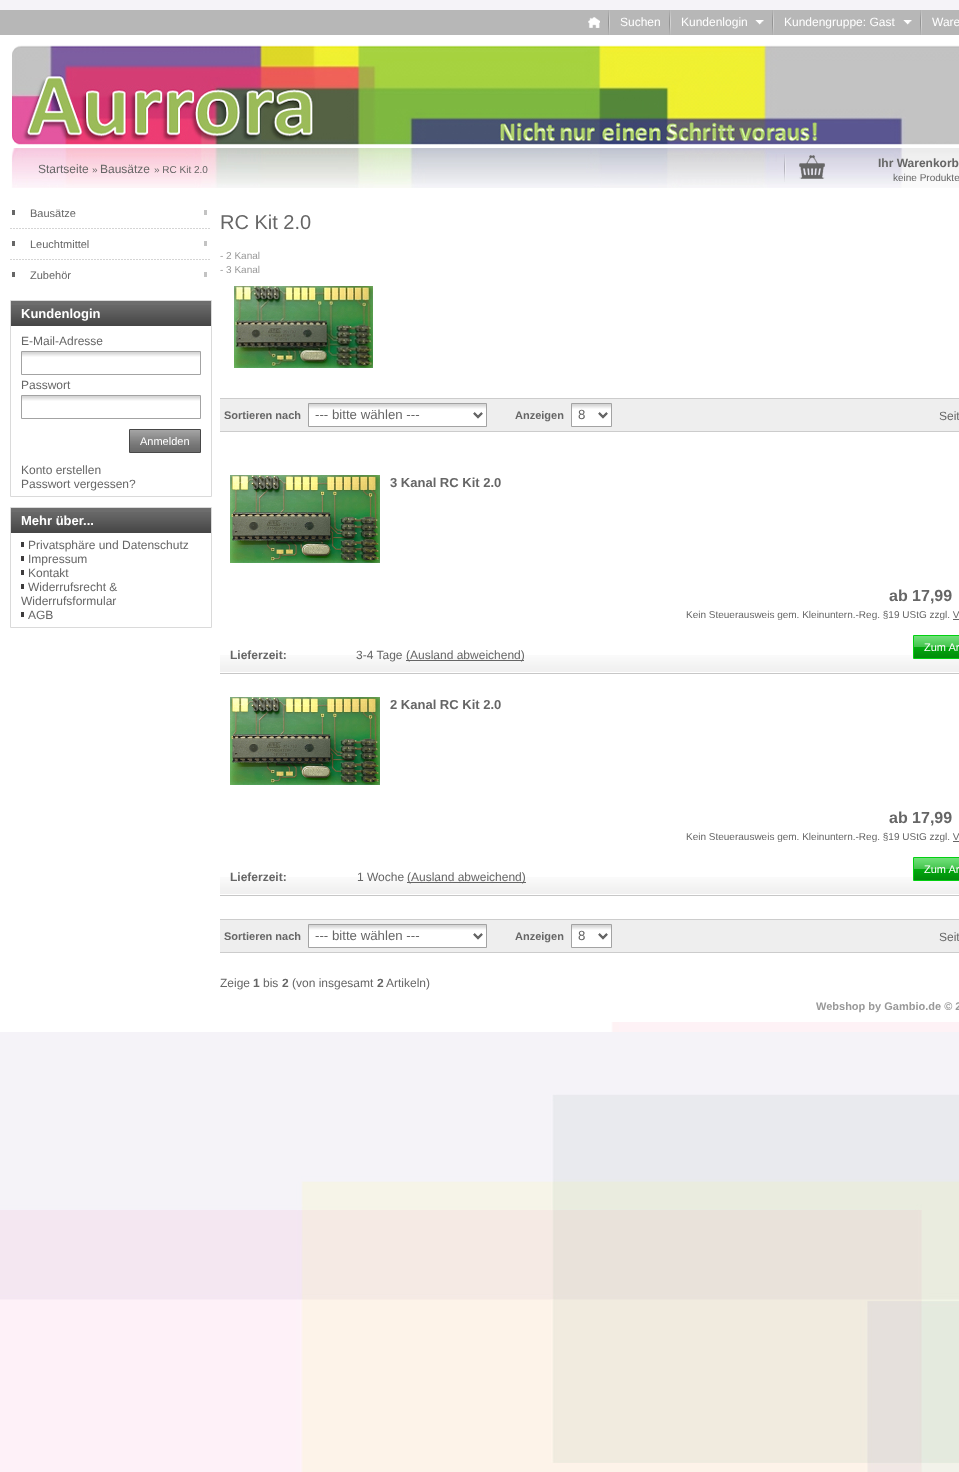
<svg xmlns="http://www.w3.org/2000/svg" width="959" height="1472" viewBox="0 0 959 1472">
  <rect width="100%" height="100%" fill="#fff"/>
  <image x="0" y="0" width="959" height="1472" href="img/1.png"/>
  <path d="M0 10h959v25H0z" fill="#b7b7b7"/>
  <image x="608" y="10" width="2" height="25" href="img/2.png"/>
  <image x="588" y="17" width="12" height="11" href="img/3.png"/>
  <image x="669" y="10" width="2" height="25" href="img/2.png"/>
  <image x="772" y="10" width="2" height="25" href="img/2.png"/>
  <image x="755" y="20" width="9" height="5" href="img/4.png"/>
  <image x="920" y="10" width="2" height="25" href="img/2.png"/>
  <image x="903" y="20" width="9" height="5" href="img/4.png"/>
  <path d="M0 35h959v987H0z" fill="#fff"/>
  <image x="12" y="45" width="947" height="100" href="img/5.png"/>
  <image x="10" y="148" width="949" height="40" href="img/6.png"/>
  <image x="784" y="154" width="2" height="28" href="img/7.png"/>
  <image x="799" y="155" width="26" height="24" href="img/8.png"/>
  <image x="10" y="228" width="200" height="1" href="img/9.png"/>
  <path d="M12 210h3v5H12z" fill="#666"/>
  <path d="M204 210h3v5H204z" fill="#c3c3c3"/>
  <image x="10" y="259" width="200" height="1" href="img/9.png"/>
  <path d="M12 241h3v5H12z" fill="#666"/>
  <path d="M204 241h3v5H204z" fill="#c3c3c3"/>
  <path d="M12 272h3v5H12z" fill="#666"/>
  <path d="M204 272h3v5H204z" fill="#c3c3c3"/>
  <path d="M10.5 300.5h201v196H10.5z" fill="none" stroke="#dadada"/>
  <path d="M11 301h200v25H11z" fill="#6d6d6d"/>
  <image x="11" y="305" width="200" height="21" href="img/10.png"/>
  <image x="22" y="352" width="178" height="5" href="img/11.png"/>
  <path d="M21.5 351.5h179v23H21.5z" fill="none" stroke="#a3a3a3"/>
  <image x="22" y="396" width="178" height="5" href="img/11.png"/>
  <path d="M21.5 395.5h179v23H21.5z" fill="none" stroke="#a3a3a3"/>
  <path d="M130 430h70v22H130z" fill="#c8c8c8"/>
  <image x="130" y="430" width="70" height="22" href="img/12.png"/>
  <path d="M129.5 429.5h71v23H129.5z" fill="none" stroke="#484848"/>
  <path d="M10.5 507.5h201v120H10.5z" fill="none" stroke="#dadada"/>
  <path d="M11 508h200v25H11z" fill="#6d6d6d"/>
  <image x="11" y="512" width="200" height="21" href="img/10.png"/>
  <path d="M21 542h3v5H21z" fill="#3e3c3d"/>
  <path d="M21 556h3v5H21z" fill="#3e3c3d"/>
  <path d="M21 570h3v5H21z" fill="#3e3c3d"/>
  <path d="M21 584h3v5H21z" fill="#3e3c3d"/>
  <path d="M21 612h3v5H21z" fill="#3e3c3d"/>
  <image x="234" y="286" width="139" height="82" href="img/13.png"/>
  <path d="M220 399h739v32H220z" fill="#eee"/>
  <path d="M220 398h739v1H220z" fill="#ccc"/>
  <path d="M220 431h739v1H220z" fill="#ccc"/>
  <path d="M309 404h177v22H309z" fill="#fff"/>
  <image x="309" y="404" width="177" height="15" href="img/14.png"/>
  <path d="M308.5 403.5h178v23H308.5z" fill="none" stroke="#a3a3a3"/>
  <path d="M474 413L478 417L482 413" fill="none" stroke="#666" stroke-width="2"/>
  <path d="M572 404h39v22H572z" fill="#fff"/>
  <image x="572" y="404" width="39" height="15" href="img/15.png"/>
  <path d="M571.5 403.5h40v23H571.5z" fill="none" stroke="#a3a3a3"/>
  <path d="M599 413L603 417L607 413" fill="none" stroke="#666" stroke-width="2"/>
  <image x="230" y="475" width="150" height="88" href="img/16.png"/>
  <path d="M953 619h6v1H953z" fill="#666"/>
  <image x="220" y="655" width="739" height="19" href="img/17.png"/>
  <path d="M914 636h45v22H914z" fill="#03d012"/>
  <image x="914" y="636" width="45" height="22" href="img/18.png"/>
  <path d="M913.5 635.5h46v23H913.5z" fill="none" stroke="#03d012"/>
  <path d="M406 660h118v1H406z" fill="#666"/>
  <image x="230" y="697" width="150" height="88" href="img/16.png"/>
  <path d="M953 841h6v1H953z" fill="#666"/>
  <image x="220" y="877" width="739" height="19" href="img/17.png"/>
  <path d="M914 858h45v22H914z" fill="#03d012"/>
  <image x="914" y="858" width="45" height="22" href="img/18.png"/>
  <path d="M913.5 857.5h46v23H913.5z" fill="none" stroke="#03d012"/>
  <path d="M407 882h119v1H407z" fill="#666"/>
  <path d="M220 920h739v32H220z" fill="#eee"/>
  <path d="M220 919h739v1H220z" fill="#ccc"/>
  <path d="M220 952h739v1H220z" fill="#ccc"/>
  <path d="M309 925h177v22H309z" fill="#fff"/>
  <image x="309" y="925" width="177" height="15" href="img/14.png"/>
  <path d="M308.5 924.5h178v23H308.5z" fill="none" stroke="#a3a3a3"/>
  <path d="M474 934L478 938L482 934" fill="none" stroke="#666" stroke-width="2"/>
  <path d="M572 925h39v22H572z" fill="#fff"/>
  <image x="572" y="925" width="39" height="15" href="img/15.png"/>
  <path d="M571.5 924.5h40v23H571.5z" fill="none" stroke="#a3a3a3"/>
  <path d="M599 934L603 938L607 934" fill="none" stroke="#666" stroke-width="2"/>
  <g font-family="Liberation Sans" font-size="12" fill="#fff">
    <text x="620" y="26">Suchen</text>
    <text x="681" y="26">Kundenlogin</text>
    <text x="784" y="26">Kundengruppe: Gast</text>
    <text x="932" y="26">Ware</text>
  </g>
  <text x="38" y="173" font-family="Liberation Sans" font-size="12" fill="#666">Startseite</text>
  <text x="92" y="173" font-family="Liberation Sans" font-size="10" fill="#666">»</text>
  <text x="100" y="173" font-family="Liberation Sans" font-size="12" fill="#666">Bausätze</text>
  <text x="154" y="173" font-family="Liberation Sans" font-size="10" fill="#666">» RC Kit 2.0</text>
  <text x="878" y="167" font-family="Liberation Sans" font-size="12" font-weight="bold" fill="#666">Ihr Warenkorb</text>
  <text x="893" y="181" font-family="Liberation Sans" font-size="10" fill="#666">keine Produkte</text>
  <g font-family="Liberation Sans" font-size="11" fill="#666">
    <text x="30" y="217">Bausätze</text>
    <text x="30" y="248">Leuchtmittel</text>
    <text x="30" y="279">Zubehör</text>
  </g>
  <text x="21" y="318" font-family="Liberation Sans" font-size="13" font-weight="bold" fill="#fff">Kundenlogin</text>
  <g font-family="Liberation Sans" font-size="12" fill="#666">
    <text x="21" y="345">E-Mail-Adresse</text>
    <text x="21" y="389">Passwort</text>
  </g>
  <text x="140" y="445" font-family="Liberation Sans" font-size="11" fill="#fff">Anmelden</text>
  <g font-family="Liberation Sans" font-size="12" fill="#666">
    <text x="21" y="474">Konto erstellen</text>
    <text x="21" y="488">Passwort vergessen?</text>
  </g>
  <text x="21" y="525" font-family="Liberation Sans" font-size="13" font-weight="bold" fill="#fff">Mehr über...</text>
  <g font-family="Liberation Sans" font-size="12" fill="#666">
    <text x="28" y="549">Privatsphäre und Datenschutz</text>
    <text x="28" y="563">Impressum</text>
    <text x="28" y="577">Kontakt</text>
    <text x="28" y="591">Widerrufsrecht &amp;</text>
    <text x="21" y="605">Widerrufsformular</text>
    <text x="28" y="619">AGB</text>
  </g>
  <text x="220" y="229" font-family="Liberation Sans" font-size="20" fill="#666">RC Kit 2.0</text>
  <g font-family="Liberation Sans" font-size="10" fill="#999">
    <text x="220" y="259">- 2 Kanal</text>
    <text x="220" y="273">- 3 Kanal</text>
  </g>
  <text x="224" y="419" font-family="Liberation Sans" font-size="11" font-weight="bold" fill="#666">Sortieren nach</text>
  <text x="315" y="419" font-family="Liberation Sans" font-size="13.25" fill="#666">--- bitte wählen ---</text>
  <text x="515" y="419" font-family="Liberation Sans" font-size="11" font-weight="bold" fill="#666">Anzeigen</text>
  <text x="578" y="419" font-family="Liberation Sans" font-size="13.25" fill="#666">8</text>
  <text x="939" y="420" font-family="Liberation Sans" font-size="12" fill="#666">Seit</text>
  <text x="390" y="487" font-family="Liberation Sans" font-size="13" font-weight="bold" fill="#666">3 Kanal RC Kit 2.0</text>
  <text x="889" y="601" font-family="Liberation Sans" font-size="16" font-weight="bold" fill="#666">ab 17,99</text>
  <text x="686" y="618" font-family="Liberation Sans" font-size="10" fill="#666">Kein Steuerausweis gem. Kleinuntern.-Reg. §19 UStG zzgl. V</text>
  <text x="924" y="651" font-family="Liberation Sans" font-size="11" fill="#fff">Zum Ar</text>
  <text x="230" y="659" font-family="Liberation Sans" font-size="12" font-weight="bold" fill="#666">Lieferzeit:</text>
  <g font-family="Liberation Sans" font-size="12" fill="#666">
    <text x="356" y="659">3-4 Tage</text>
    <text x="406" y="659">(Ausland abweichend)</text>
  </g>
  <text x="390" y="709" font-family="Liberation Sans" font-size="13" font-weight="bold" fill="#666">2 Kanal RC Kit 2.0</text>
  <text x="889" y="823" font-family="Liberation Sans" font-size="16" font-weight="bold" fill="#666">ab 17,99</text>
  <text x="686" y="840" font-family="Liberation Sans" font-size="10" fill="#666">Kein Steuerausweis gem. Kleinuntern.-Reg. §19 UStG zzgl. V</text>
  <text x="924" y="873" font-family="Liberation Sans" font-size="11" fill="#fff">Zum Ar</text>
  <text x="230" y="881" font-family="Liberation Sans" font-size="12" font-weight="bold" fill="#666">Lieferzeit:</text>
  <g font-family="Liberation Sans" font-size="12" fill="#666">
    <text x="357" y="881">1 Woche</text>
    <text x="407" y="881">(Ausland abweichend)</text>
  </g>
  <text x="224" y="940" font-family="Liberation Sans" font-size="11" font-weight="bold" fill="#666">Sortieren nach</text>
  <text x="315" y="940" font-family="Liberation Sans" font-size="13.25" fill="#666">--- bitte wählen ---</text>
  <text x="515" y="940" font-family="Liberation Sans" font-size="11" font-weight="bold" fill="#666">Anzeigen</text>
  <text x="578" y="940" font-family="Liberation Sans" font-size="13.25" fill="#666">8</text>
  <g font-family="Liberation Sans" font-size="12" fill="#666">
    <text x="939" y="941">Seit</text>
    <text x="220" y="987">Zeige</text>
  </g>
  <text x="253" y="987" font-family="Liberation Sans" font-size="12" font-weight="bold" fill="#666">1</text>
  <text x="263" y="987" font-family="Liberation Sans" font-size="12" fill="#666">bis</text>
  <text x="282" y="987" font-family="Liberation Sans" font-size="12" font-weight="bold" fill="#666">2</text>
  <text x="292" y="987" font-family="Liberation Sans" font-size="12" fill="#666">(von insgesamt</text>
  <text x="377" y="987" font-family="Liberation Sans" font-size="12" font-weight="bold" fill="#666">2</text>
  <text x="386" y="987" font-family="Liberation Sans" font-size="12" fill="#666">Artikeln)</text>
  <text x="816" y="1010" font-family="Liberation Sans" font-size="11" font-weight="bold" fill="#999">Webshop by Gambio.de © 2</text>
</svg>
